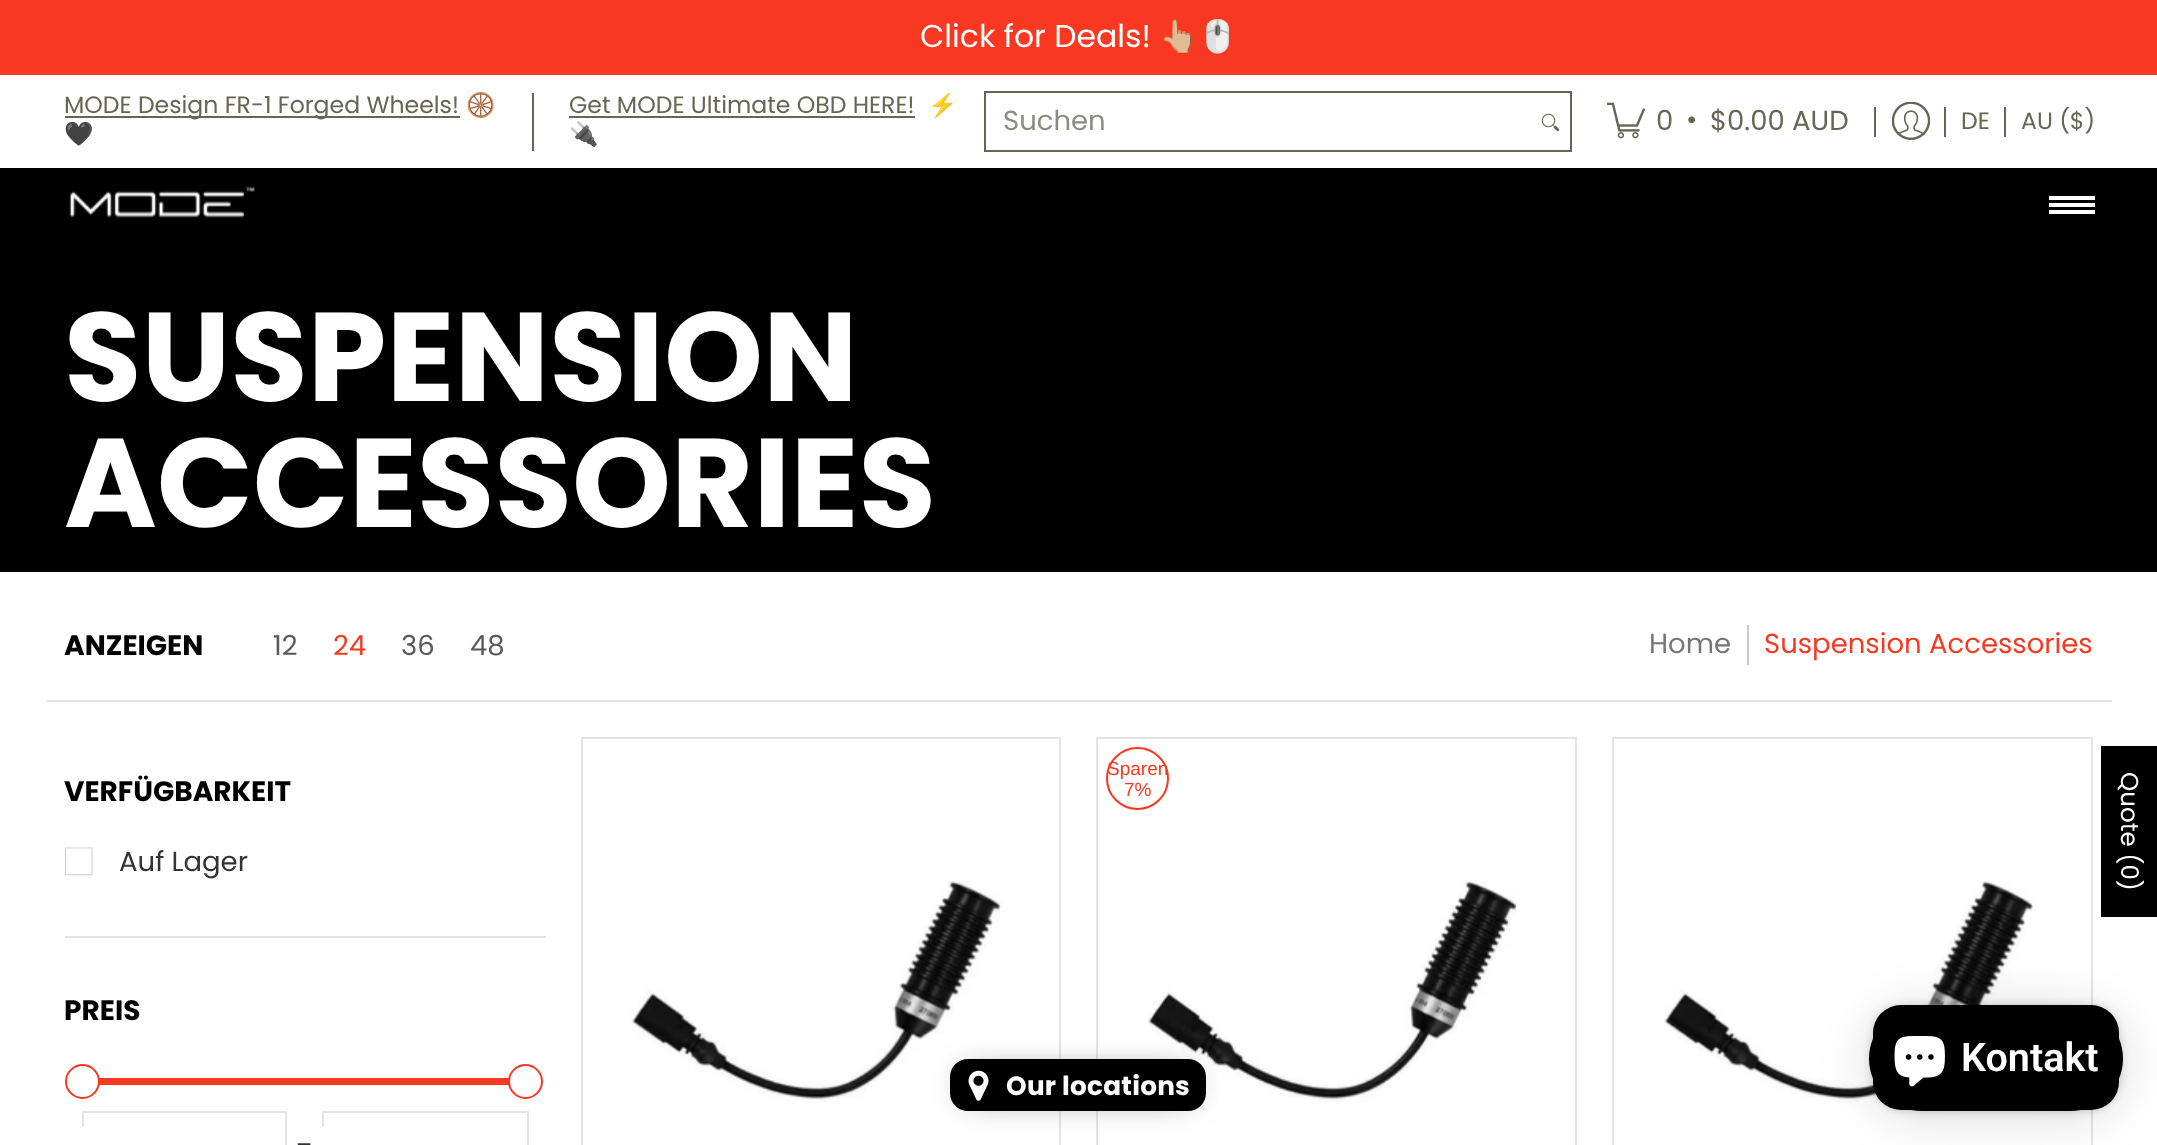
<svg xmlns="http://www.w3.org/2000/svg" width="2157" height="1145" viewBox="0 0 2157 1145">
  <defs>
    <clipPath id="clip1"><path d="M534 93h423v58H534z"/></clipPath>
  </defs>
  <rect width="100%" height="100%" fill="#fff"/>
  <path d="M0 0h2157v75H0z" fill="#f93822"/>
  <path d="M65 116h395v2H65z" fill="#665"/>
  <path d="M532 93h2v58H532z" fill="#665"/>
  <path d="M569 116h346v2H569z" fill="#665"/>
  <path d="M985 92h586v59H985z" fill="none" stroke="#665" stroke-width="2"/>
  <image x="1541" y="113" width="19" height="19" href="img/1.png"/>
  <image x="1607" y="102" width="38" height="37" href="img/2.png"/>
  <path d="M1874 107h2v30H1874z" fill="#665"/>
  <image x="1892" y="102" width="38" height="38" href="img/3.png"/>
  <path d="M1944 107h2v30H1944z" fill="#665"/>
  <path d="M2004 107h2v30H2004z" fill="#665"/>
  <path d="M0 168h2157v404H0z" fill="#000"/>
  <image x="69" y="186" width="186" height="32" href="img/4.png"/>
  <path d="M2049 196h46v4H2049z" fill="#fff"/>
  <path d="M2049 210h46v4H2049z" fill="#fff"/>
  <path d="M2049 203h46v4H2049z" fill="#fff"/>
  <path d="M47 700h2065v2H47z" fill="#e4e4e4"/>
  <path d="M1747 625h2v40H1747z" fill="#cbcbcb"/>
  <path d="M65 936h481v2H65z" fill="#e4e4e4"/>
  <image x="65" y="847" width="28" height="29" href="img/5.png"/>
  <path d="M99 1078h410v7H99z" fill="#f93822"/>
  <circle cx="82.5" cy="1081.5" r="16.5" fill="#fff" stroke="#f93822" stroke-width="2"/>
  <circle cx="525.5" cy="1081.5" r="16.5" fill="#fff" stroke="#f93822" stroke-width="2"/>
  <path d="M83 1112h203v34H83z" fill="none" stroke="#e4e4e4" stroke-width="2"/>
  <circle cx="82.5" cy="1144.5" r="17.5" fill="#fff"/>
  <path d="M323 1112h205v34H323z" fill="none" stroke="#e4e4e4" stroke-width="2"/>
  <circle cx="322.5" cy="1144.5" r="17.5" fill="#fff"/>
  <path d="M582 738h478v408H582z" fill="none" stroke="#e4e4e4" stroke-width="2"/>
  <image x="631" y="881" width="373" height="222" href="img/6.png"/>
  <path d="M1097 738h479v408H1097z" fill="none" stroke="#e4e4e4" stroke-width="2"/>
  <circle cx="1137.5" cy="778.5" r="30.5" fill="none" stroke="#f93822" stroke-width="2"/>
  <image x="1147" y="881" width="373" height="221" href="img/7.png"/>
  <path d="M1613 738h479v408H1613z" fill="none" stroke="#e4e4e4" stroke-width="2"/>
  <image x="1664" y="881" width="372" height="221" href="img/8.png"/>
  <path d="M2101 746h56v171H2101z" fill="#000"/>
  <rect x="1869" y="1010" width="254" height="105" rx="52.5" fill="#00000026" filter="blur(26px)"/>
  <rect x="1869" y="1008" width="254" height="105" rx="52.5" fill="#0000000d" filter="blur(5px)"/>
  <rect x="1869" y="1006" width="254" height="105" rx="52.5" fill="#000"/>
  <rect x="1873" y="1005" width="246" height="105" rx="28" fill="#00000026" filter="blur(4.5px)"/>
  <rect x="1873" y="1005" width="246" height="105" rx="28" fill="#000"/>
  <image x="1894" y="1036" width="51" height="51" href="img/9.png"/>
  <rect x="966" y="1075" width="224" height="21" rx="2" fill="#5a5a5a" filter="blur(16px)"/>
  <rect x="950" y="1059" width="256" height="52" rx="18" fill="#000"/>
  <image x="968" y="1070" width="21" height="31" href="img/10.png"/>
  <text x="920" y="47" font-family="Poppins" font-size="31.5" fill="#fff">Click for Deals!</text>
  <text x="1159" y="47" font-family="Noto Color Emoji" font-size="31.5" fill="#fff">👆🏼🖱️</text>
  <text x="64" y="113" font-family="Poppins" font-size="23.6" fill="#665">MODE Design FR-1 Forged Wheels!</text>
  <g font-family="Noto Color Emoji" font-size="23.6" fill="#665">
    <text x="466" y="113">🛞</text>
    <text x="64" y="142">🖤</text>
  </g>
  <text x="569" y="113" font-family="Poppins" font-size="23.6" fill="#665">Get MODE Ultimate OBD HERE!</text>
  <g clip-path="url(#clip1)">
    <text x="928" y="113" font-family="Noto Color Emoji" font-size="23.6" fill="#665">⚡️</text>
  </g>
  <text x="569" y="142" font-family="Noto Color Emoji" font-size="23.6" fill="#665">🔌</text>
  <text x="1003" y="130" font-family="Poppins" font-size="27.5" fill="#8c8c80">Suchen</text>
  <g font-family="Poppins" font-size="27.5" fill="#665">
    <text x="1656" y="130">0</text>
    <text x="1686" y="129">•</text>
    <text x="1710" y="130">$0.00 AUD</text>
  </g>
  <g font-family="Poppins" font-size="23.6" fill="#665">
    <text x="1961" y="129">DE</text>
    <text x="2021" y="129">AU ($)</text>
  </g>
  <g font-family="Poppins" font-size="126" font-weight="bold" fill="#fff">
    <text x="64" y="401">SUSPENSION</text>
    <text x="64" y="527">ACCESSORIES</text>
  </g>
  <text x="64" y="655" font-family="Poppins" font-size="28" font-weight="bold" fill="#000">ANZEIGEN</text>
  <text x="273" y="655" font-family="Poppins" font-size="27.5" fill="#595959">12</text>
  <text x="333" y="655" font-family="Poppins" font-size="27.5" fill="#f93822">24</text>
  <g font-family="Poppins" font-size="27.5" fill="#595959">
    <text x="401" y="655">36</text>
    <text x="470" y="655">48</text>
  </g>
  <text x="1649" y="653" font-family="Poppins" font-size="27.5" fill="#767676">Home</text>
  <text x="1764" y="653" font-family="Poppins" font-size="27.5" fill="#f93822">Suspension Accessories</text>
  <text x="64" y="801" font-family="Poppins" font-size="28" font-weight="bold" fill="#000">VERFÜGBARKEIT</text>
  <text x="119" y="871" font-family="Poppins" font-size="27.5" fill="#333">Auf Lager</text>
  <text x="64" y="1020" font-family="Poppins" font-size="28" font-weight="bold" fill="#000">PREIS</text>
  <text x="296" y="1156" font-family="Poppins" font-size="31.5" fill="#333">-</text>
  <g font-family="Liberation Sans" font-size="19" fill="#f93822">
    <text x="1107" y="775">Sparen</text>
    <text x="1124" y="796">7%</text>
  </g>
  <text x="2121" y="772" transform="rotate(90 2121 772)" font-family="Poppins" font-size="24.5" fill="#fff">Quote (0)</text>
  <text x="1961" y="1071" font-family="Roboto" font-size="39.5" font-weight="600" fill="#fff">Kontakt</text>
  <text x="1006" y="1095" font-family="Poppins" font-size="26.25" font-weight="bold" letter-spacing="0.25" fill="#fff">Our locations</text>
</svg>
